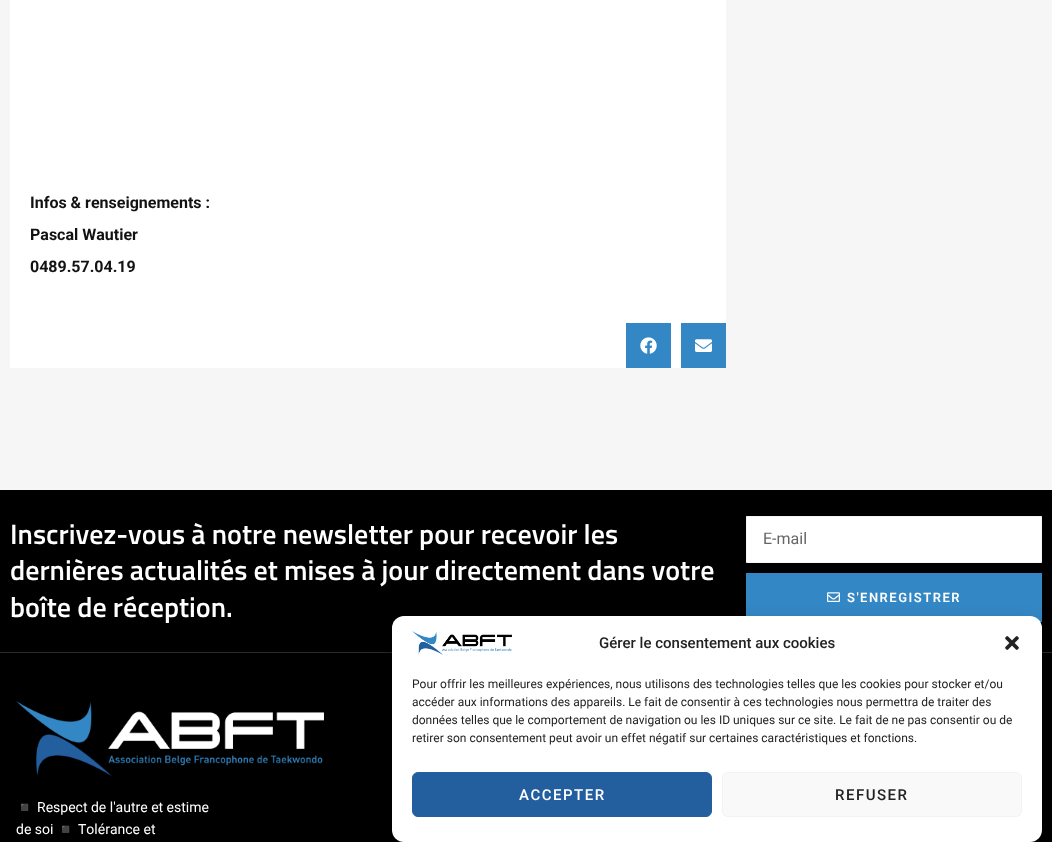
<svg xmlns="http://www.w3.org/2000/svg" width="1052" height="842" viewBox="0 0 1052 842">
  <style>*{font-kerning:none!important;font-variant-ligatures:none!important}</style>
  <rect width="100%" height="100%" fill="#f6f6f6"/>
  <path d="M10 0h716v368H10z" fill="#fff"/>
  <path d="M626 323h45v45H626z" fill="#3387c4"/>
  <image x="640" y="337" width="17" height="17" href="img/1.png"/>
  <path d="M681 323h45v45H681z" fill="#3387c4"/>
  <image x="695" y="339" width="17" height="13" href="img/2.png"/>
  <path d="M0 490h1052v352H0z" fill="#000"/>
  <path d="M0 652h1052v1H0z" fill="#2b2b2b"/>
  <path d="M746.5 516.5h295v46H746.5z" fill="#fff" stroke="#f6f6f6"/>
  <path d="M746 573h296v49H746z" fill="#3387c4"/>
  <image x="827" y="592" width="13" height="10" href="img/3.png"/>
  <image x="16" y="701" width="308" height="75" href="img/4.png"/>
  <rect x="392" y="622" width="650" height="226" rx="12" fill="#0000003b" filter="blur(3px)"/>
  <rect x="392" y="626" width="650" height="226" rx="12" fill="#00000030" filter="blur(10px)"/>
  <rect x="392" y="616" width="650" height="226" rx="12" fill="#fff"/>
  <image x="412" y="631" width="100" height="24" href="img/5.png"/>
  <image x="1005" y="636" width="14" height="14" href="img/6.png"/>
  <rect x="412.5" y="772.5" width="299" height="44" rx="5.5" fill="#235e9e" stroke="#235e9e"/>
  <rect x="722.5" y="772.5" width="299" height="44" rx="5.5" fill="#f9f9f9" stroke="#f2f2f2"/>
  <g font-family="Roboto" font-size="16" font-weight="bold" fill="#121212">
    <text x="30" y="208">Infos &amp; renseignements :</text>
    <text x="30" y="240">Pascal Wautier</text>
    <text x="30" y="272">0489.57.04.19</text>
  </g>
  <g font-family="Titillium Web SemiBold" font-size="28.1" font-weight="600" fill="#fff">
    <text x="10" y="544">Inscrivez-vous à notre newsletter pour recevoir les</text>
    <text x="10" y="580">dernières actualités et mises à jour directement dans votre</text>
    <text x="10" y="617">boîte de réception.</text>
  </g>
  <text x="763" y="544" font-family="Roboto" font-size="16" fill="#666">E-mail</text>
  <text x="847" y="602" font-family="Roboto" font-size="13" font-weight="600" letter-spacing="1.5" fill="#fff">S'ENREGISTRER</text>
  <text x="16" y="812" font-family="Noto Color Emoji" font-size="14" fill="#fff">◾</text>
  <g font-family="Roboto" font-size="14" fill="#fff">
    <text x="37" y="812">Respect de l'autre et estime</text>
    <text x="16" y="834">de soi</text>
  </g>
  <text x="57" y="834" font-family="Noto Color Emoji" font-size="14" fill="#fff">◾</text>
  <text x="78" y="834" font-family="Roboto" font-size="14" fill="#fff">Tolérance et</text>
  <text x="599" y="648" font-family="Roboto" font-size="15" font-weight="500" fill="#222">Gérer le consentement aux cookies</text>
  <g font-family="Roboto" font-size="12" fill="#222">
    <text x="412" y="688">Pour offrir les meilleures expériences, nous utilisons des technologies telles que les cookies pour stocker et/ou</text>
    <text x="412" y="706">accéder aux informations des appareils. Le fait de consentir à ces technologies nous permettra de traiter des</text>
    <text x="412" y="724">données telles que le comportement de navigation ou les ID uniques sur ce site. Le fait de ne pas consentir ou de</text>
    <text x="412" y="742">retirer son consentement peut avoir un effet négatif sur certaines caractéristiques et fonctions.</text>
  </g>
  <text x="519" y="800" font-family="Roboto" font-size="15" font-weight="500" letter-spacing="1.5" fill="#fff">ACCEPTER</text>
  <text x="835" y="800" font-family="Roboto" font-size="15" font-weight="500" letter-spacing="1.5" fill="#222">REFUSER</text>
</svg>
